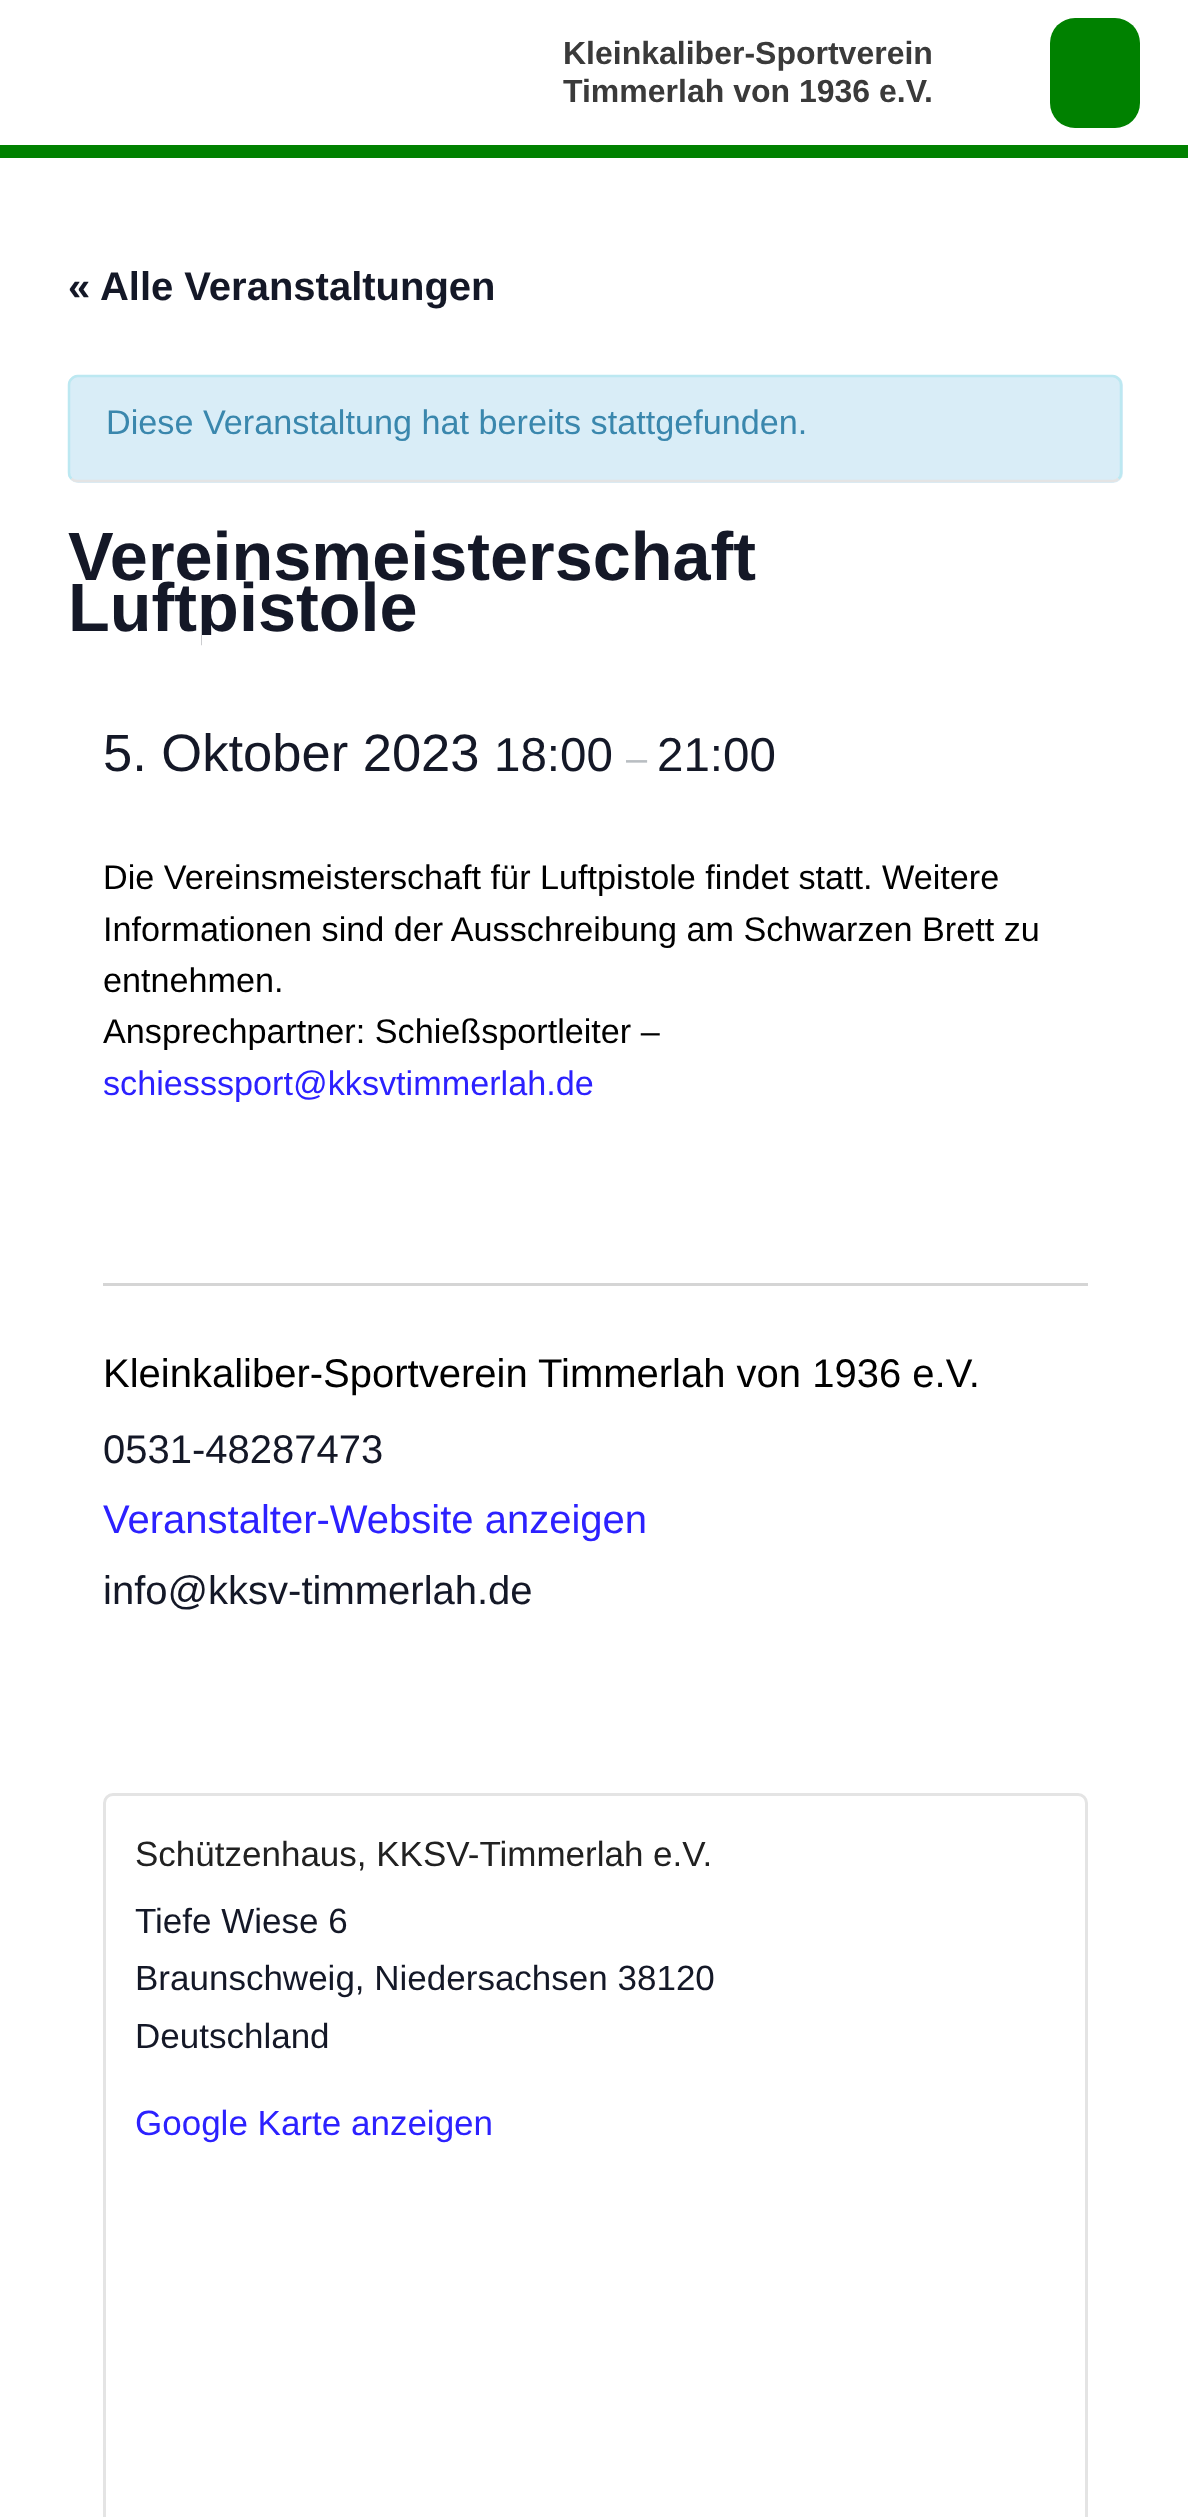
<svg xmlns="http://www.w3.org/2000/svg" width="1188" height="2517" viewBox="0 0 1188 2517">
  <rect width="100%" height="100%" fill="#fff"/>
  <path d="M0 145h1188v13H0z" fill="#008100"/>
  <rect x="1050" y="18" width="90" height="110" rx="25" fill="#008100"/>
  <rect x="68" y="375" width="1055" height="108" rx="10" fill="#d9edf7"/>
  <path d="M1118.5 478.5C1117 480.5 1115 481 1112.5 481H77.5C75 481 73 480.5 71.5 478.5" fill="none" stroke="#e4e4e4" stroke-width="2.5"/>
  <path d="M71.5 478.5C69.5 477 69 475 69 472.5V385C69 382.5 69.5 380.5 71.5 379C73 377 75 376 77.5 376H1112.5C1115 376 1117 377 1118.5 379C1120.5 380.5 1121 382.5 1121 385V472.5C1121 475 1120.5 477 1118.5 478.5" fill="none" stroke="#bce8f1" stroke-width="2.5"/>
  <path d="M103 1283h985v3H103z" fill="#d5d5d5"/>
  <rect x="104.5" y="1794.5" width="982" height="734" rx="8.5" fill="none" stroke="#e4e4e4" stroke-width="3"/>
  <g font-family="Liberation Sans" font-size="32" font-weight="bold" fill="#3a3a3a">
    <text x="563" y="64">Kleinkaliber-Sportverein</text>
    <text x="563" y="102">Timmerlah von 1936 e.V.</text>
  </g>
  <text x="68" y="300" font-family="Liberation Sans" font-size="40" font-weight="bold" fill="#141827">« Alle Veranstaltungen</text>
  <text x="106" y="434" font-family="Liberation Sans" font-size="34.2" fill="#3a87ad">Diese Veranstaltung hat bereits stattgefunden.</text>
  <g font-family="Liberation Sans" font-size="68.4" font-weight="bold" fill="#141827">
    <text x="68" y="580">Vereinsmeisterschaft</text>
    <text x="68" y="631">Luftpistole</text>
  </g>
  <path d="M202 635h10v11H202z" fill="#fff"/>
  <text x="103" y="771" font-family="Liberation Sans" font-size="52.5" fill="#141827">5. Oktober 2023</text>
  <text x="494" y="771" font-family="Liberation Sans" font-size="47.5" fill="#141827">18:00</text>
  <text x="626" y="771" font-family="Liberation Sans" font-size="38" fill="#b9bec2">–</text>
  <text x="657" y="771" font-family="Liberation Sans" font-size="47.5" fill="#141827">21:00</text>
  <g font-family="Liberation Sans" font-size="34.2" fill="#000">
    <text x="103" y="889">Die Vereinsmeisterschaft für Luftpistole findet statt. Weitere</text>
    <text x="103" y="941">Informationen sind der Ausschreibung am Schwarzen Brett zu</text>
    <text x="103" y="992">entnehmen.</text>
    <text x="103" y="1043">Ansprechpartner: Schießsportleiter –</text>
  </g>
  <text x="103" y="1095" font-family="Liberation Sans" font-size="34.2" fill="#2c21ff">schiesssport@kksvtimmerlah.de</text>
  <text x="103" y="1387" font-family="Liberation Sans" font-size="40" fill="#000">Kleinkaliber-Sportverein Timmerlah von 1936 e.V.</text>
  <text x="103" y="1463" font-family="Liberation Sans" font-size="40" fill="#141827">0531-48287473</text>
  <text x="103" y="1533" font-family="Liberation Sans" font-size="40" fill="#2c21ff">Veranstalter-Website anzeigen</text>
  <text x="103" y="1604" font-family="Liberation Sans" font-size="40" fill="#141827">info@kksv-timmerlah.de</text>
  <text x="135" y="1866" font-family="Liberation Sans" font-size="35" fill="#212121">Schützenhaus, KKSV-Timmerlah e.V.</text>
  <g font-family="Liberation Sans" font-size="35" fill="#141827">
    <text x="135" y="1933">Tiefe Wiese 6</text>
    <text x="135" y="1990">Braunschweig, Niedersachsen 38120</text>
    <text x="135" y="2048">Deutschland</text>
  </g>
  <text x="135" y="2135" font-family="Liberation Sans" font-size="35" fill="#2c21ff">Google Karte anzeigen</text>
</svg>
